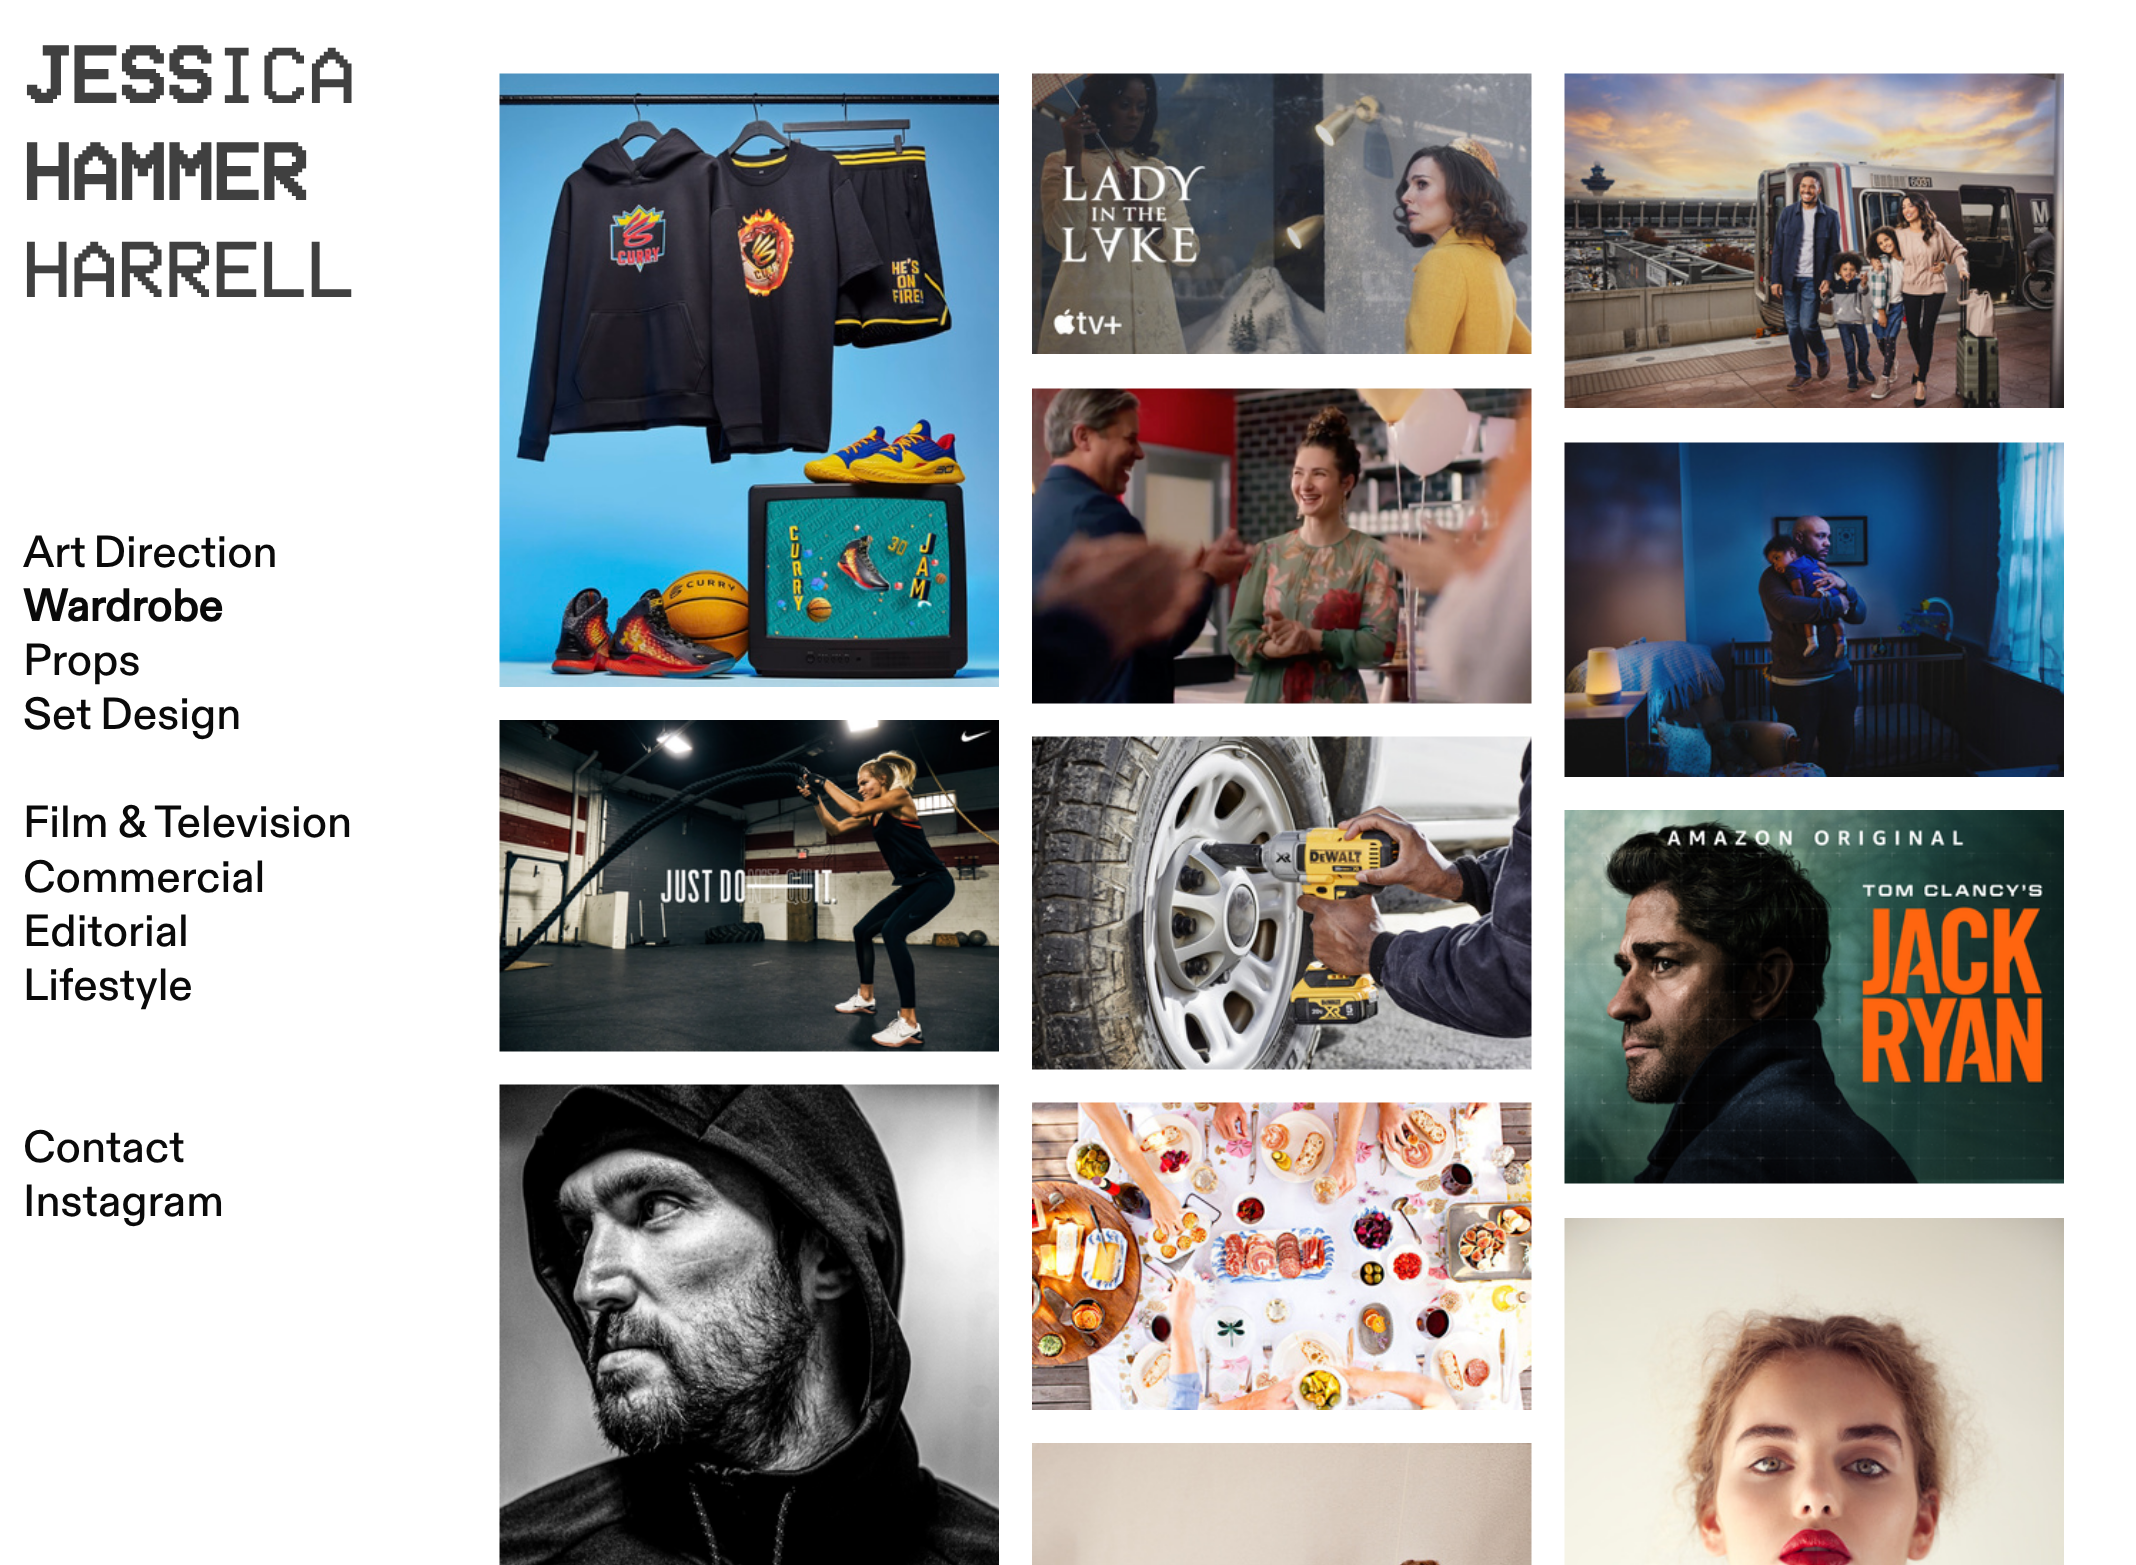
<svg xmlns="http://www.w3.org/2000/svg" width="2136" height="1565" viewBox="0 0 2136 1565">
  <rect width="100%" height="100%" fill="#fff"/>
  <image x="499" y="73" width="500" height="614" href="img/1.png"/>
  <image x="499" y="720" width="500" height="332" href="img/2.png"/>
  <image x="499" y="1084" width="500" height="481" href="img/3.png"/>
  <image x="1032" y="73" width="500" height="281" href="img/4.png"/>
  <image x="1032" y="388" width="500" height="316" href="img/5.png"/>
  <image x="1032" y="736" width="500" height="334" href="img/6.png"/>
  <image x="1032" y="1102" width="500" height="308" href="img/7.png"/>
  <image x="1032" y="1443" width="500" height="122" href="img/8.png"/>
  <image x="1564" y="73" width="500" height="335" href="img/9.png"/>
  <image x="1564" y="442" width="500" height="335" href="img/10.png"/>
  <image x="1564" y="810" width="500" height="374" href="img/11.png"/>
  <image x="1564" y="1218" width="500" height="347" href="img/12.png"/>
  <text x="23" y="107" font-family="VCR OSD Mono" font-size="81" font-weight="bold" fill="#404040">JESS</text>
  <text x="213" y="107" font-family="VCR OSD Mono" font-size="81" fill="#404040">ICA</text>
  <text x="23" y="204" font-family="VCR OSD Mono" font-size="81" font-weight="bold" fill="#404040">HAMMER</text>
  <text x="23" y="301" font-family="VCR OSD Mono" font-size="81" fill="#404040">HARRELL</text>
  <text x="23" y="567" word-spacing="-3" font-family="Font" font-size="45" font-weight="500" fill="#0a0a0a">Art Direction</text>
  <text x="23" y="621" font-family="Font" font-size="45" font-weight="bold" fill="#0a0a0a">Wardrobe</text>
  <g font-family="Font" font-size="45" font-weight="500" fill="#0a0a0a">
    <text x="23" y="675">Props</text>
    <text x="23" y="729" word-spacing="-2">Set Design</text>
    <text x="23" y="837" word-spacing="-1">Film &amp; Television</text>
    <text x="23" y="892">Commercial</text>
    <text x="23" y="946">Editorial</text>
    <text x="23" y="1000">Lifestyle</text>
    <text x="23" y="1162">Contact</text>
    <text x="23" y="1216">Instagram</text>
  </g>
</svg>
